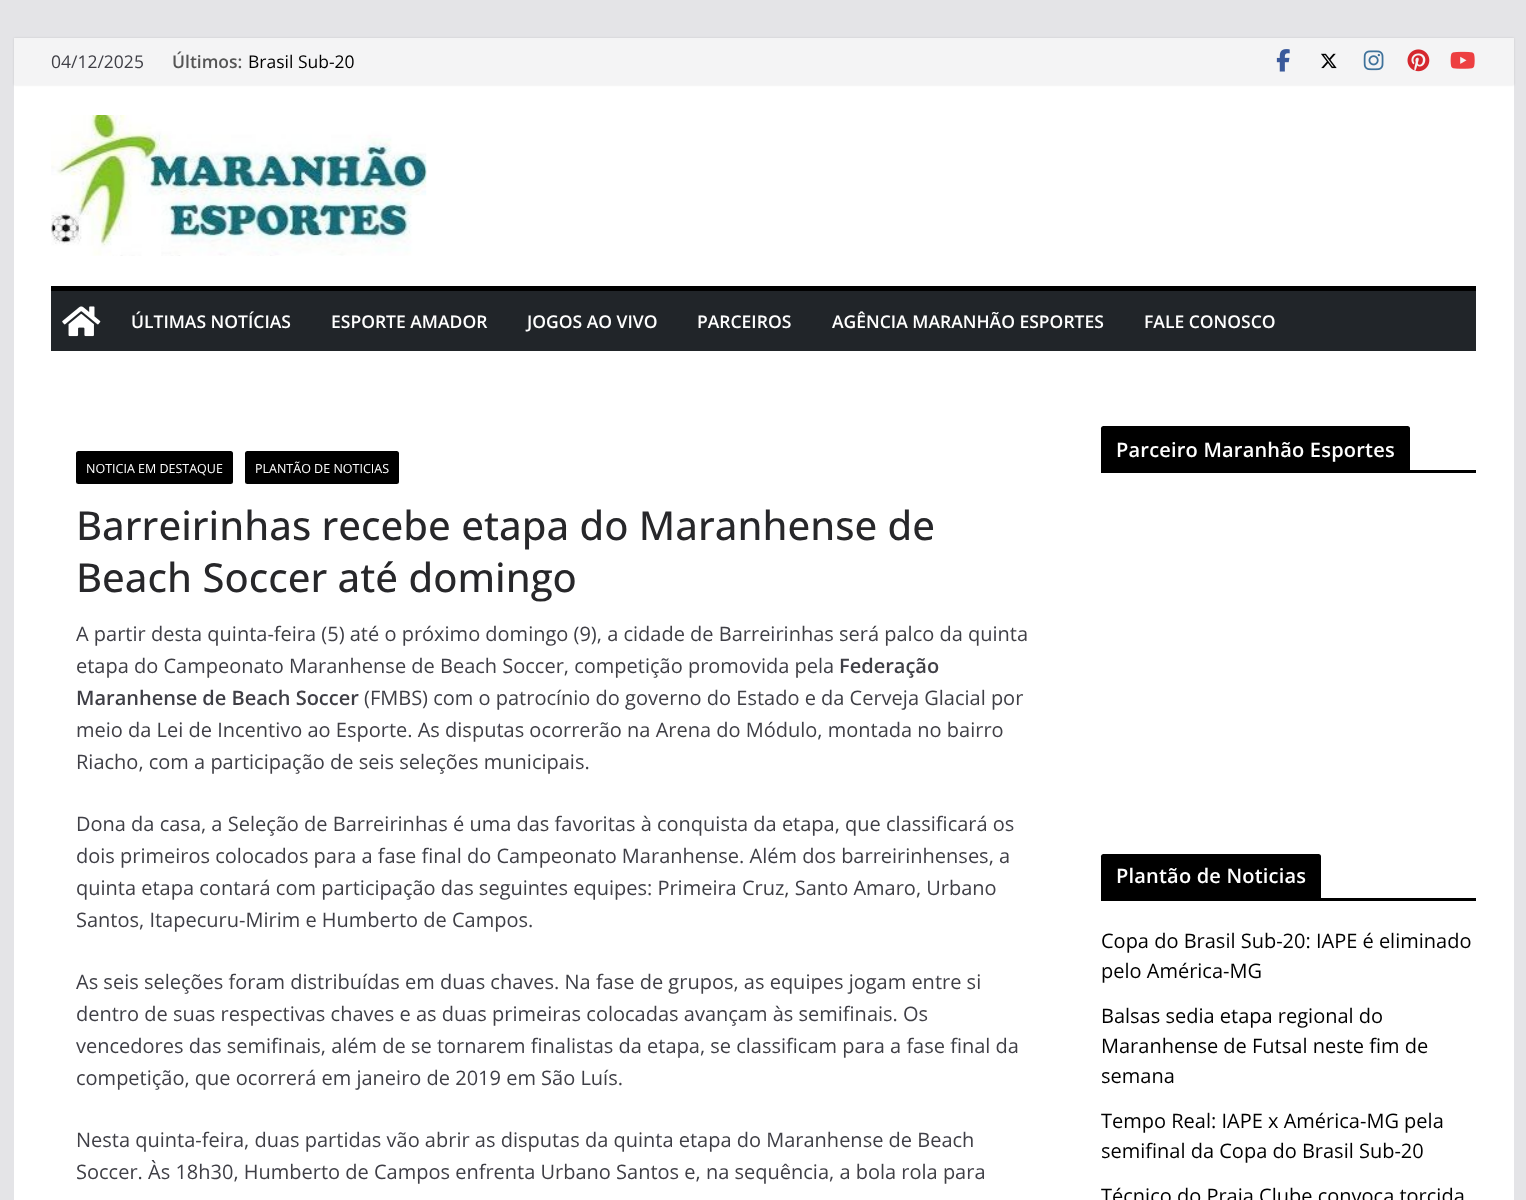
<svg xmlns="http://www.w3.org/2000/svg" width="1526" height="1200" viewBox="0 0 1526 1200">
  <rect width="100%" height="100%" fill="#e4e4e7"/>
  <path d="M14 85h1500v1115H14z" fill="#fff"/>
  <path d="M14 38h1500v47H14z" fill="#0000001a" filter="blur(1px)"/>
  <path d="M14 38h1500v47H14z" fill="#f4f4f5"/>
  <image x="1276" y="49" width="14" height="23" href="img/1.png"/>
  <image x="1321" y="53" width="16" height="16" href="img/2.png"/>
  <image x="1363" y="50" width="21" height="21" href="img/3.png"/>
  <image x="1407" y="49" width="23" height="23" href="img/4.png"/>
  <image x="1450" y="51" width="25" height="18" href="img/5.png"/>
  <image x="51" y="115" width="376" height="141" href="img/6.png"/>
  <path d="M51 291h1425v60H51z" fill="#212529"/>
  <path d="M51 286h1425v5H51z" fill="#000"/>
  <image x="62" y="306" width="39" height="31" href="img/7.png"/>
  <rect x="76" y="451" width="157" height="33" rx="2.5" fill="#000"/>
  <rect x="245" y="451" width="154" height="33" rx="2.5" fill="#000"/>
  <path d="M1101 470h375v3H1101z" fill="#000"/>
  <path d="M1103.5 426H1407.5C1409 426 1410 427 1410 428.5V470H1101V428.5C1101 427 1102 426 1103.5 426Z" fill="#000"/>
  <path d="M1101 898h375v3H1101z" fill="#000"/>
  <path d="M1103.5 854H1318.5C1320 854 1321 855 1321 856.5V898H1101V856.5C1101 855 1102 854 1103.5 854Z" fill="#000"/>
  <text x="51" y="68" font-family="Open Sans" font-size="17.5" fill="#3f3f46">04/12/2025</text>
  <text x="172" y="68" font-family="Open Sans" font-size="17.5" font-weight="600" fill="#555">Últimos:</text>
  <text x="248" y="68" font-family="Open Sans" font-size="17.5" fill="#000">Brasil Sub-20</text>
  <g font-family="Open Sans" font-size="17.5" font-weight="600" fill="#fff">
    <text x="131" y="328">ÚLTIMAS NOTÍCIAS</text>
    <text x="331" y="328">ESPORTE AMADOR</text>
    <text x="527" y="328">JOGOS AO VIVO</text>
    <text x="697" y="328">PARCEIROS</text>
    <text x="832" y="328">AGÊNCIA MARANHÃO ESPORTES</text>
    <text x="1144" y="328">FALE CONOSCO</text>
  </g>
  <g font-family="Open Sans" font-size="12.5" fill="#fff">
    <text x="86" y="473">NOTICIA EM DESTAQUE</text>
    <text x="255" y="473">PLANTÃO DE NOTICIAS</text>
  </g>
  <g font-family="Open Sans" font-size="40" font-weight="500" fill="#27272a">
    <text x="76" y="540">Barreirinhas recebe etapa do Maranhense de</text>
    <text x="76" y="592">Beach Soccer até domingo</text>
  </g>
  <g font-family="Open Sans" font-size="20" fill="#3f3f46">
    <text x="76" y="641">A partir desta quinta-feira (5) até o próximo domingo (9), a cidade de Barreirinhas será palco da quinta</text>
    <text x="76" y="673">etapa do Campeonato Maranhense de Beach Soccer, competição promovida pela</text>
  </g>
  <g font-family="Open Sans" font-size="20" font-weight="600" fill="#3f3f46">
    <text x="839" y="673">Federação</text>
    <text x="76" y="705">Maranhense de Beach Soccer</text>
  </g>
  <g font-family="Open Sans" font-size="20" fill="#3f3f46">
    <text x="364" y="705">(FMBS) com o patrocínio do governo do Estado e da Cerveja Glacial por</text>
    <text x="76" y="737">meio da Lei de Incentivo ao Esporte. As disputas ocorrerão na Arena do Módulo, montada no bairro</text>
    <text x="76" y="769">Riacho, com a participação de seis seleções municipais.</text>
    <text x="76" y="831">Dona da casa, a Seleção de Barreirinhas é uma das favoritas à conquista da etapa, que classificará os</text>
    <text x="76" y="863">dois primeiros colocados para a fase final do Campeonato Maranhense. Além dos barreirinhenses, a</text>
    <text x="76" y="895">quinta etapa contará com participação das seguintes equipes: Primeira Cruz, Santo Amaro, Urbano</text>
    <text x="76" y="927">Santos, Itapecuru-Mirim e Humberto de Campos.</text>
    <text x="76" y="989">As seis seleções foram distribuídas em duas chaves. Na fase de grupos, as equipes jogam entre si</text>
    <text x="76" y="1021">dentro de suas respectivas chaves e as duas primeiras colocadas avançam às semifinais. Os</text>
    <text x="76" y="1053">vencedores das semifinais, além de se tornarem finalistas da etapa, se classificam para a fase final da</text>
    <text x="76" y="1085">competição, que ocorrerá em janeiro de 2019 em São Luís.</text>
    <text x="76" y="1147">Nesta quinta-feira, duas partidas vão abrir as disputas da quinta etapa do Maranhense de Beach</text>
    <text x="76" y="1179">Soccer. Às 18h30, Humberto de Campos enfrenta Urbano Santos e, na sequência, a bola rola para</text>
  </g>
  <g font-family="Open Sans" font-size="20" font-weight="600" letter-spacing="0.2" fill="#fff">
    <text x="1116" y="457">Parceiro Maranhão Esportes</text>
    <text x="1116" y="883">Plantão de Noticias</text>
  </g>
  <g font-family="Open Sans" font-size="20" fill="#000">
    <text x="1101" y="948">Copa do Brasil Sub-20: IAPE é eliminado</text>
    <text x="1101" y="978">pelo América-MG</text>
    <text x="1101" y="1023">Balsas sedia etapa regional do</text>
    <text x="1101" y="1053">Maranhense de Futsal neste fim de</text>
    <text x="1101" y="1083">semana</text>
    <text x="1101" y="1128">Tempo Real: IAPE x América-MG pela</text>
    <text x="1101" y="1158">semifinal da Copa do Brasil Sub-20</text>
    <text x="1101" y="1203">Técnico do Praia Clube convoca torcida</text>
  </g>
</svg>
